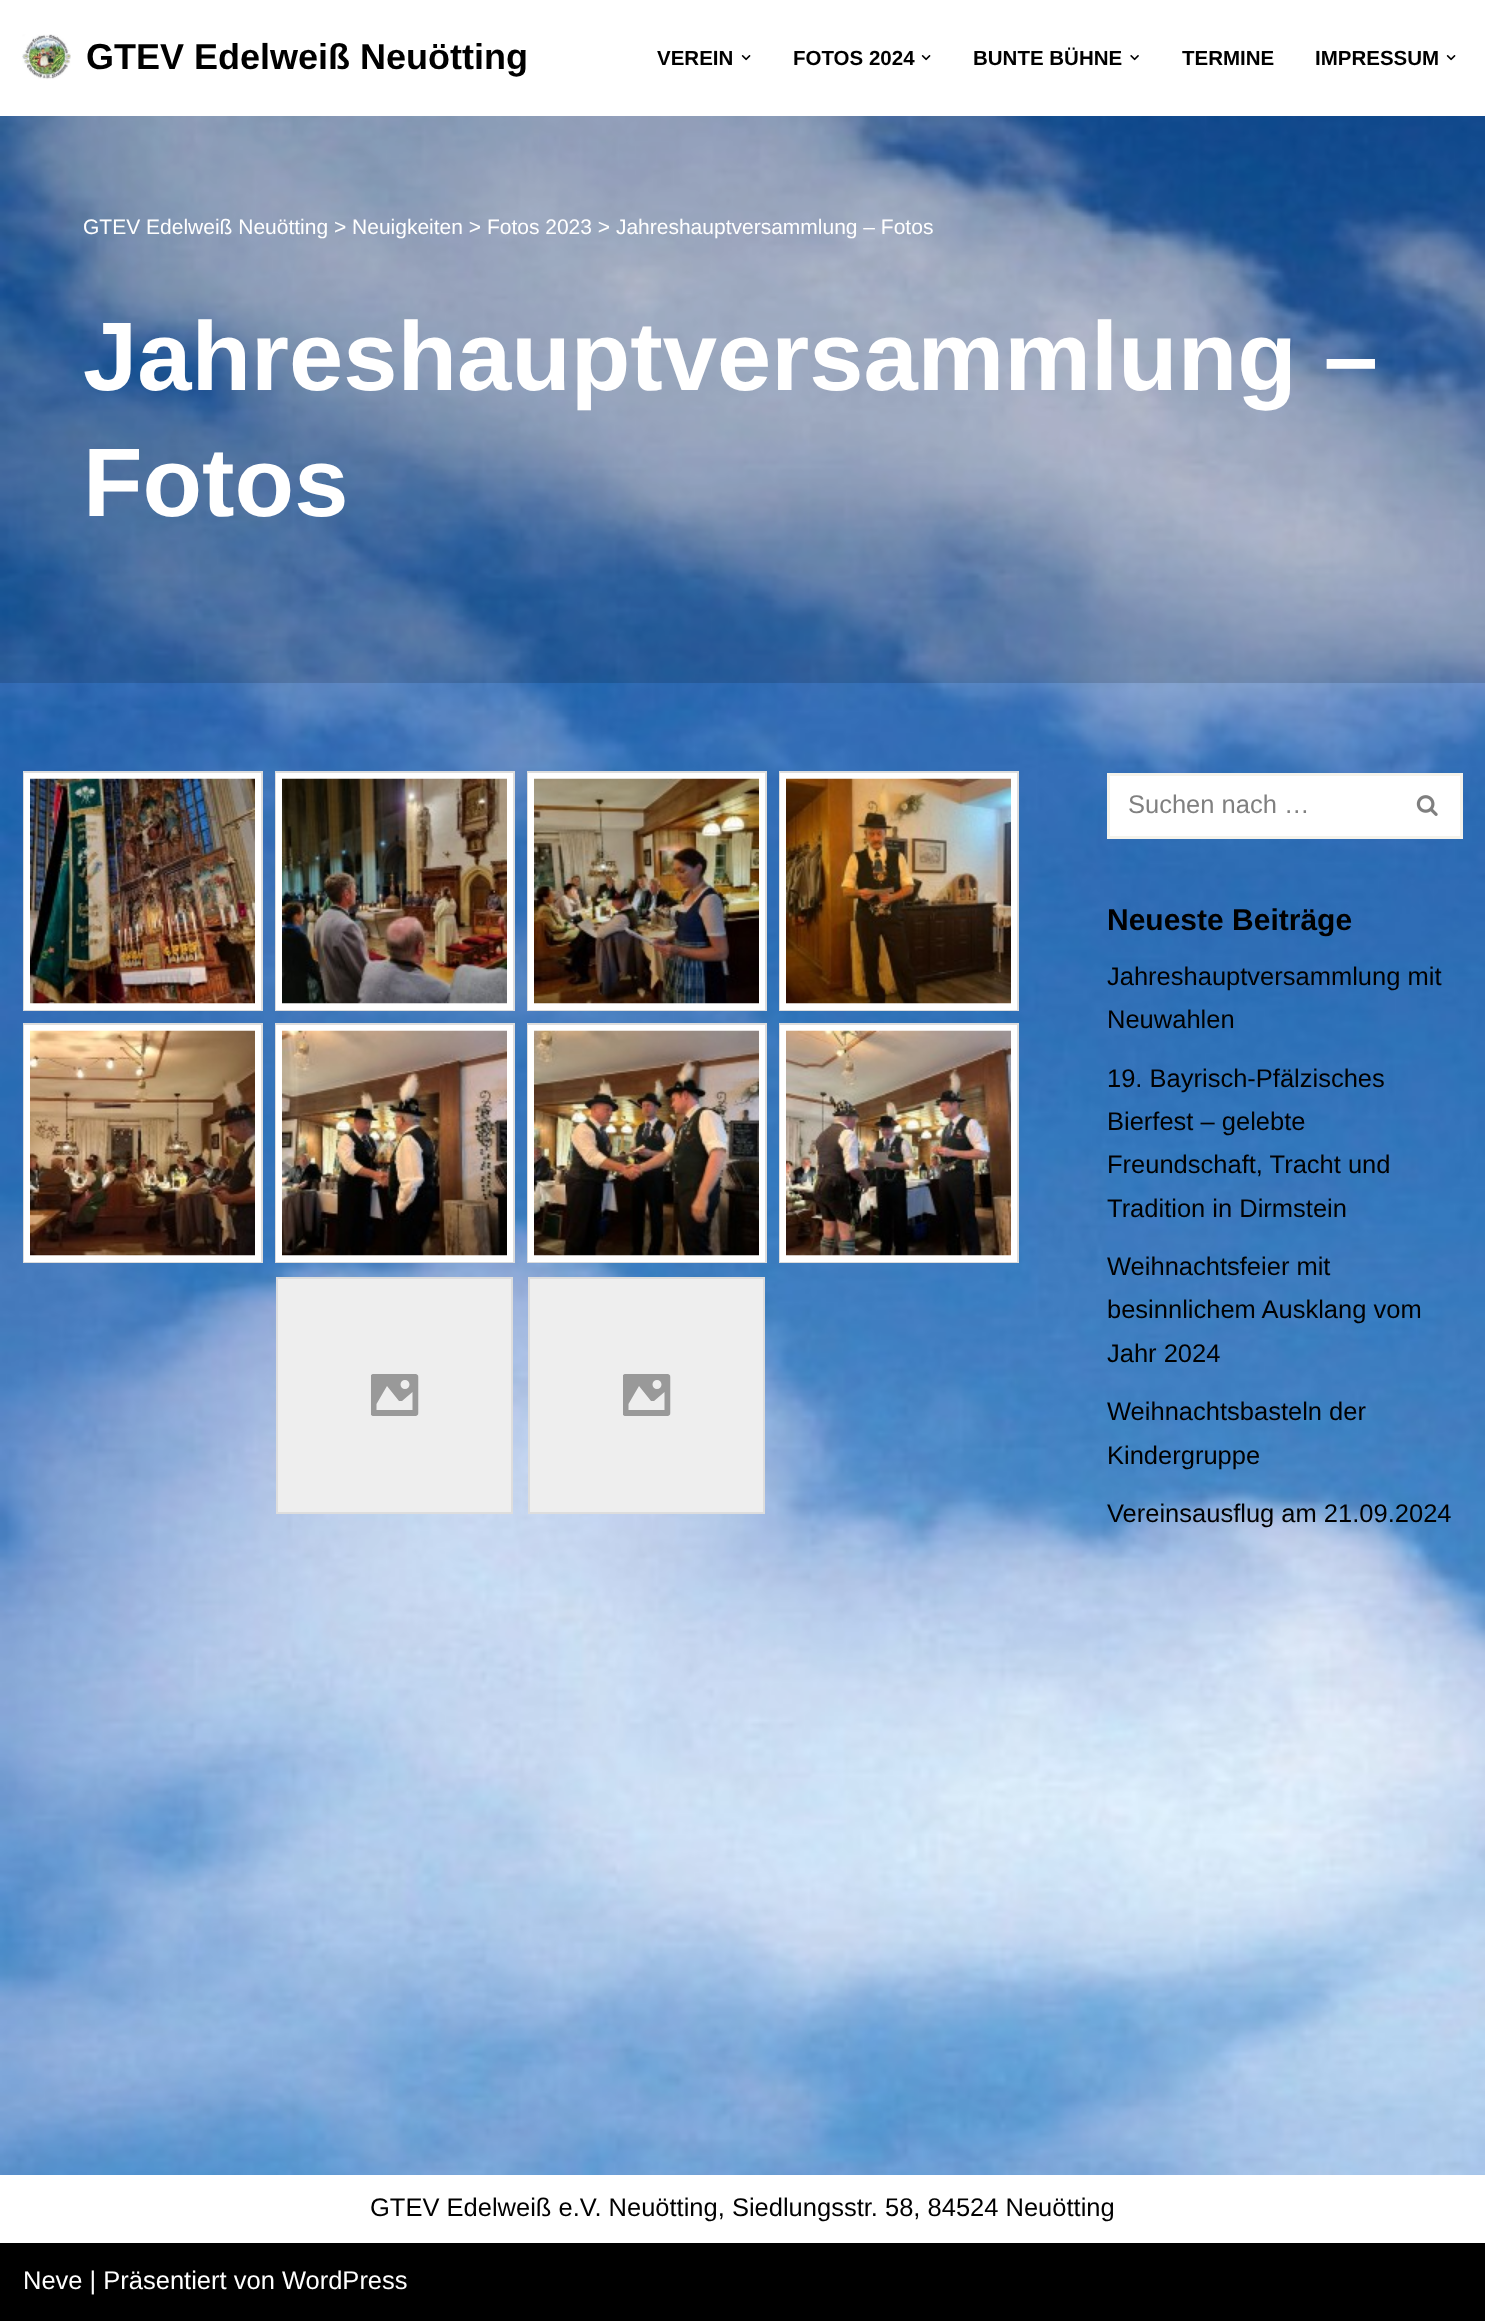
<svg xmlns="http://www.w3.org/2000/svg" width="1485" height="2321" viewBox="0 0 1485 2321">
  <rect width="100%" height="100%" fill="#fff"/>
  <image x="0" y="116" width="1485" height="2059" href="img/1.png"/>
  <image x="22" y="34" width="49" height="46" href="img/2.png"/>
  <image x="741" y="55" width="10" height="6" href="img/3.png"/>
  <image x="921" y="55" width="10" height="6" href="img/3.png"/>
  <image x="1130" y="55" width="9" height="6" href="img/4.png"/>
  <image x="1446" y="55" width="10" height="6" href="img/3.png"/>
  <path d="M0 116h1485v567H0z" fill="#00000024"/>
  <path d="M24 772h238v238H24z" fill="none" stroke="#ddd" stroke-width="2"/>
  <path d="M24 773h237v237H24z" fill="#fff"/>
  <image x="30" y="778" width="225" height="226" href="img/5.png"/>
  <path d="M276 772h238v238H276z" fill="none" stroke="#ddd" stroke-width="2"/>
  <path d="M276 773h237v237H276z" fill="#fff"/>
  <image x="282" y="778" width="225" height="226" href="img/6.png"/>
  <path d="M528 772h238v238H528z" fill="none" stroke="#ddd" stroke-width="2"/>
  <path d="M528 773h237v237H528z" fill="#fff"/>
  <image x="534" y="778" width="225" height="226" href="img/7.png"/>
  <path d="M780 772h238v238H780z" fill="none" stroke="#ddd" stroke-width="2"/>
  <path d="M780 773h237v237H780z" fill="#fff"/>
  <image x="786" y="778" width="225" height="226" href="img/8.png"/>
  <path d="M24 1024h238v238H24z" fill="none" stroke="#ddd" stroke-width="2"/>
  <path d="M24 1025h237v237H24z" fill="#fff"/>
  <image x="30" y="1030" width="225" height="226" href="img/9.png"/>
  <path d="M276 1024h238v238H276z" fill="none" stroke="#ddd" stroke-width="2"/>
  <path d="M276 1025h237v237H276z" fill="#fff"/>
  <image x="282" y="1030" width="225" height="226" href="img/10.png"/>
  <path d="M528 1024h238v238H528z" fill="none" stroke="#ddd" stroke-width="2"/>
  <path d="M528 1025h237v237H528z" fill="#fff"/>
  <image x="534" y="1030" width="225" height="226" href="img/11.png"/>
  <path d="M780 1024h238v238H780z" fill="none" stroke="#ddd" stroke-width="2"/>
  <path d="M780 1025h237v237H780z" fill="#fff"/>
  <image x="786" y="1030" width="225" height="226" href="img/12.png"/>
  <path d="M277 1278h235v235H277z" fill="#eee" stroke="#ddd" stroke-width="2"/>
  <image x="371" y="1374" width="48" height="42" href="img/13.png"/>
  <path d="M529 1278h235v235H529z" fill="#eee" stroke="#ddd" stroke-width="2"/>
  <image x="623" y="1374" width="48" height="42" href="img/13.png"/>
  <path d="M1110 776h350v60H1110z" fill="#fff"/>
  <path d="M1107 773h356v3H1107z" fill="#f5f3eb"/>
  <path d="M1107 836h288v3H1107z" fill="#f5f3eb"/>
  <path d="M1107 773h3v66H1107z" fill="#f5f3eb"/>
  <path d="M1460 773h3v66H1460z" fill="#f5f3eb"/>
  <path d="M1395 836h68v3H1395z" fill="#f5f3eb"/>
  <image x="1416" y="795" width="22" height="21" href="img/14.png"/>
  <path d="M0 2243h1485v78H0z" fill="#000"/>
  <text x="86" y="69" font-family="Liberation Sans" font-size="36" font-weight="bold" fill="#000">GTEV Edelweiß Neuötting</text>
  <g font-family="Liberation Sans" font-size="20.5" font-weight="bold" fill="#000">
    <text x="657" y="65">VEREIN</text>
    <text x="793" y="65">FOTOS 2024</text>
    <text x="973" y="65">BUNTE BÜHNE</text>
    <text x="1182" y="65">TERMINE</text>
    <text x="1315" y="65">IMPRESSUM</text>
  </g>
  <text x="83" y="234" font-family="Liberation Sans" font-size="21" fill="#fff">GTEV Edelweiß Neuötting &gt; Neuigkeiten &gt; Fotos 2023 &gt; Jahreshauptversammlung – Fotos</text>
  <g font-family="Liberation Sans" font-size="97.5" font-weight="bold" fill="#fff">
    <text x="83" y="390">Jahreshauptversammlung –</text>
    <text x="83" y="516">Fotos</text>
  </g>
  <text x="1128" y="813" font-family="Liberation Sans" font-size="25.5" fill="#808080">Suchen nach …</text>
  <text x="1107" y="930" font-family="Liberation Sans" font-size="30" font-weight="bold" fill="#000">Neueste Beiträge</text>
  <g font-family="Liberation Sans" font-size="25.5" fill="#000">
    <text x="1107" y="985">Jahreshauptversammlung mit</text>
    <text x="1107" y="1028">Neuwahlen</text>
    <text x="1107" y="1087">19. Bayrisch-Pfälzisches</text>
    <text x="1107" y="1130">Bierfest – gelebte</text>
    <text x="1107" y="1173">Freundschaft, Tracht und</text>
    <text x="1107" y="1217">Tradition in Dirmstein</text>
    <text x="1107" y="1275">Weihnachtsfeier mit</text>
    <text x="1107" y="1318">besinnlichem Ausklang vom</text>
    <text x="1107" y="1362">Jahr 2024</text>
    <text x="1107" y="1420">Weihnachtsbasteln der</text>
    <text x="1107" y="1464">Kindergruppe</text>
    <text x="1107" y="1522">Vereinsausflug am 21.09.2024</text>
    <text x="370" y="2216">GTEV Edelweiß e.V. Neuötting, Siedlungsstr. 58, 84524 Neuötting</text>
  </g>
  <text x="23" y="2289" font-family="Liberation Sans" font-size="25.5" fill="#fff">Neve | Präsentiert von WordPress</text>
</svg>
